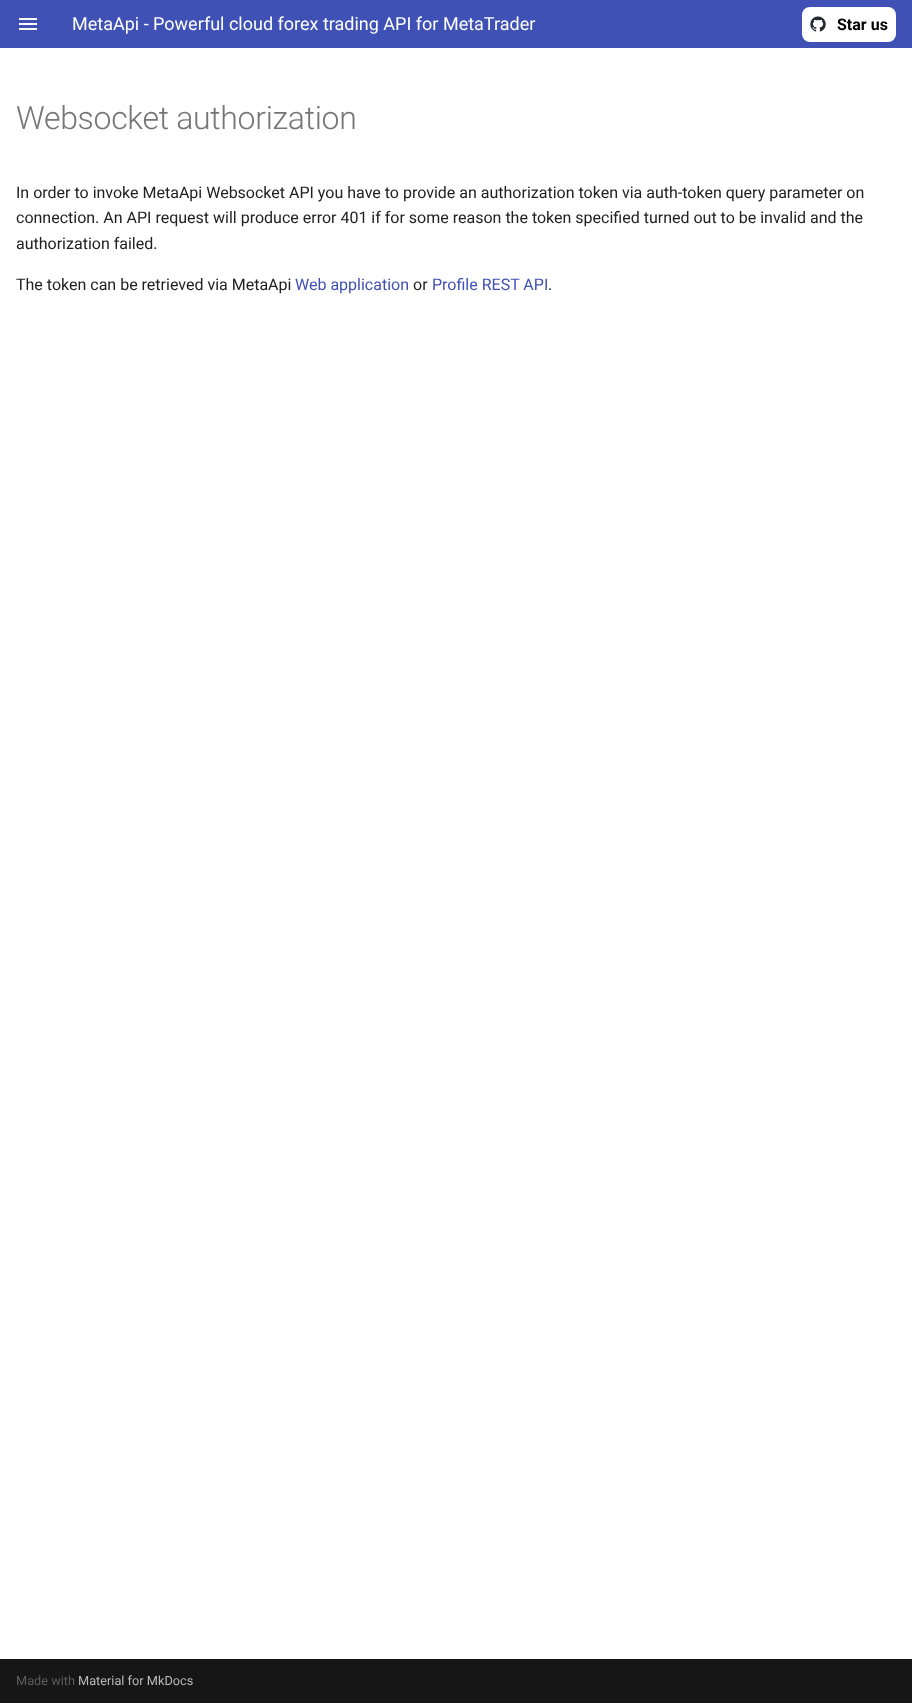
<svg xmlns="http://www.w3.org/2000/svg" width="912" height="1703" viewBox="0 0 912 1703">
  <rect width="100%" height="100%" fill="#fff"/>
  <path d="M0 0h912v48H0z" fill="#4051b5"/>
  <image x="19" y="18" width="18" height="12" href="img/1.png"/>
  <rect x="802" y="7" width="94" height="35" rx="8" fill="#fff"/>
  <image x="810" y="16" width="16" height="16" href="img/2.png"/>
  <path d="M0 1659h912v44H0z" fill="#161616"/>
  <text x="72" y="30" font-family="Roboto" font-size="18" fill="#fff">MetaApi - Powerful cloud forex trading API for MetaTrader</text>
  <text x="837" y="30" font-family="Roboto" font-size="16" font-weight="bold" fill="#000">Star us</text>
  <text x="16" y="129" font-family="Roboto" font-size="32" font-weight="300" letter-spacing="-0.3" fill="#757575">Websocket authorization</text>
  <g font-family="Roboto" font-size="16" fill="#212121">
    <text x="16" y="198">In order to invoke MetaApi Websocket API you have to provide an authorization token via auth-token query parameter on</text>
    <text x="16" y="223">connection. An API request will produce error 401 if for some reason the token specified turned out to be invalid and the</text>
    <text x="16" y="249">authorization failed.</text>
    <text x="16" y="290">The token can be retrieved via MetaApi</text>
  </g>
  <text x="295" y="290" font-family="Roboto" font-size="16" fill="#4051b5">Web application</text>
  <text x="413" y="290" font-family="Roboto" font-size="16" fill="#212121">or</text>
  <text x="432" y="290" font-family="Roboto" font-size="16" fill="#4051b5">Profile REST API</text>
  <text x="548" y="290" font-family="Roboto" font-size="16" fill="#212121">.</text>
  <text x="16" y="1685" font-family="Roboto" font-size="12.75" fill="#5c5c5c">Made with</text>
  <text x="78" y="1685" font-family="Roboto" font-size="12.75" fill="#b9b9b9">Material for MkDocs</text>
</svg>
